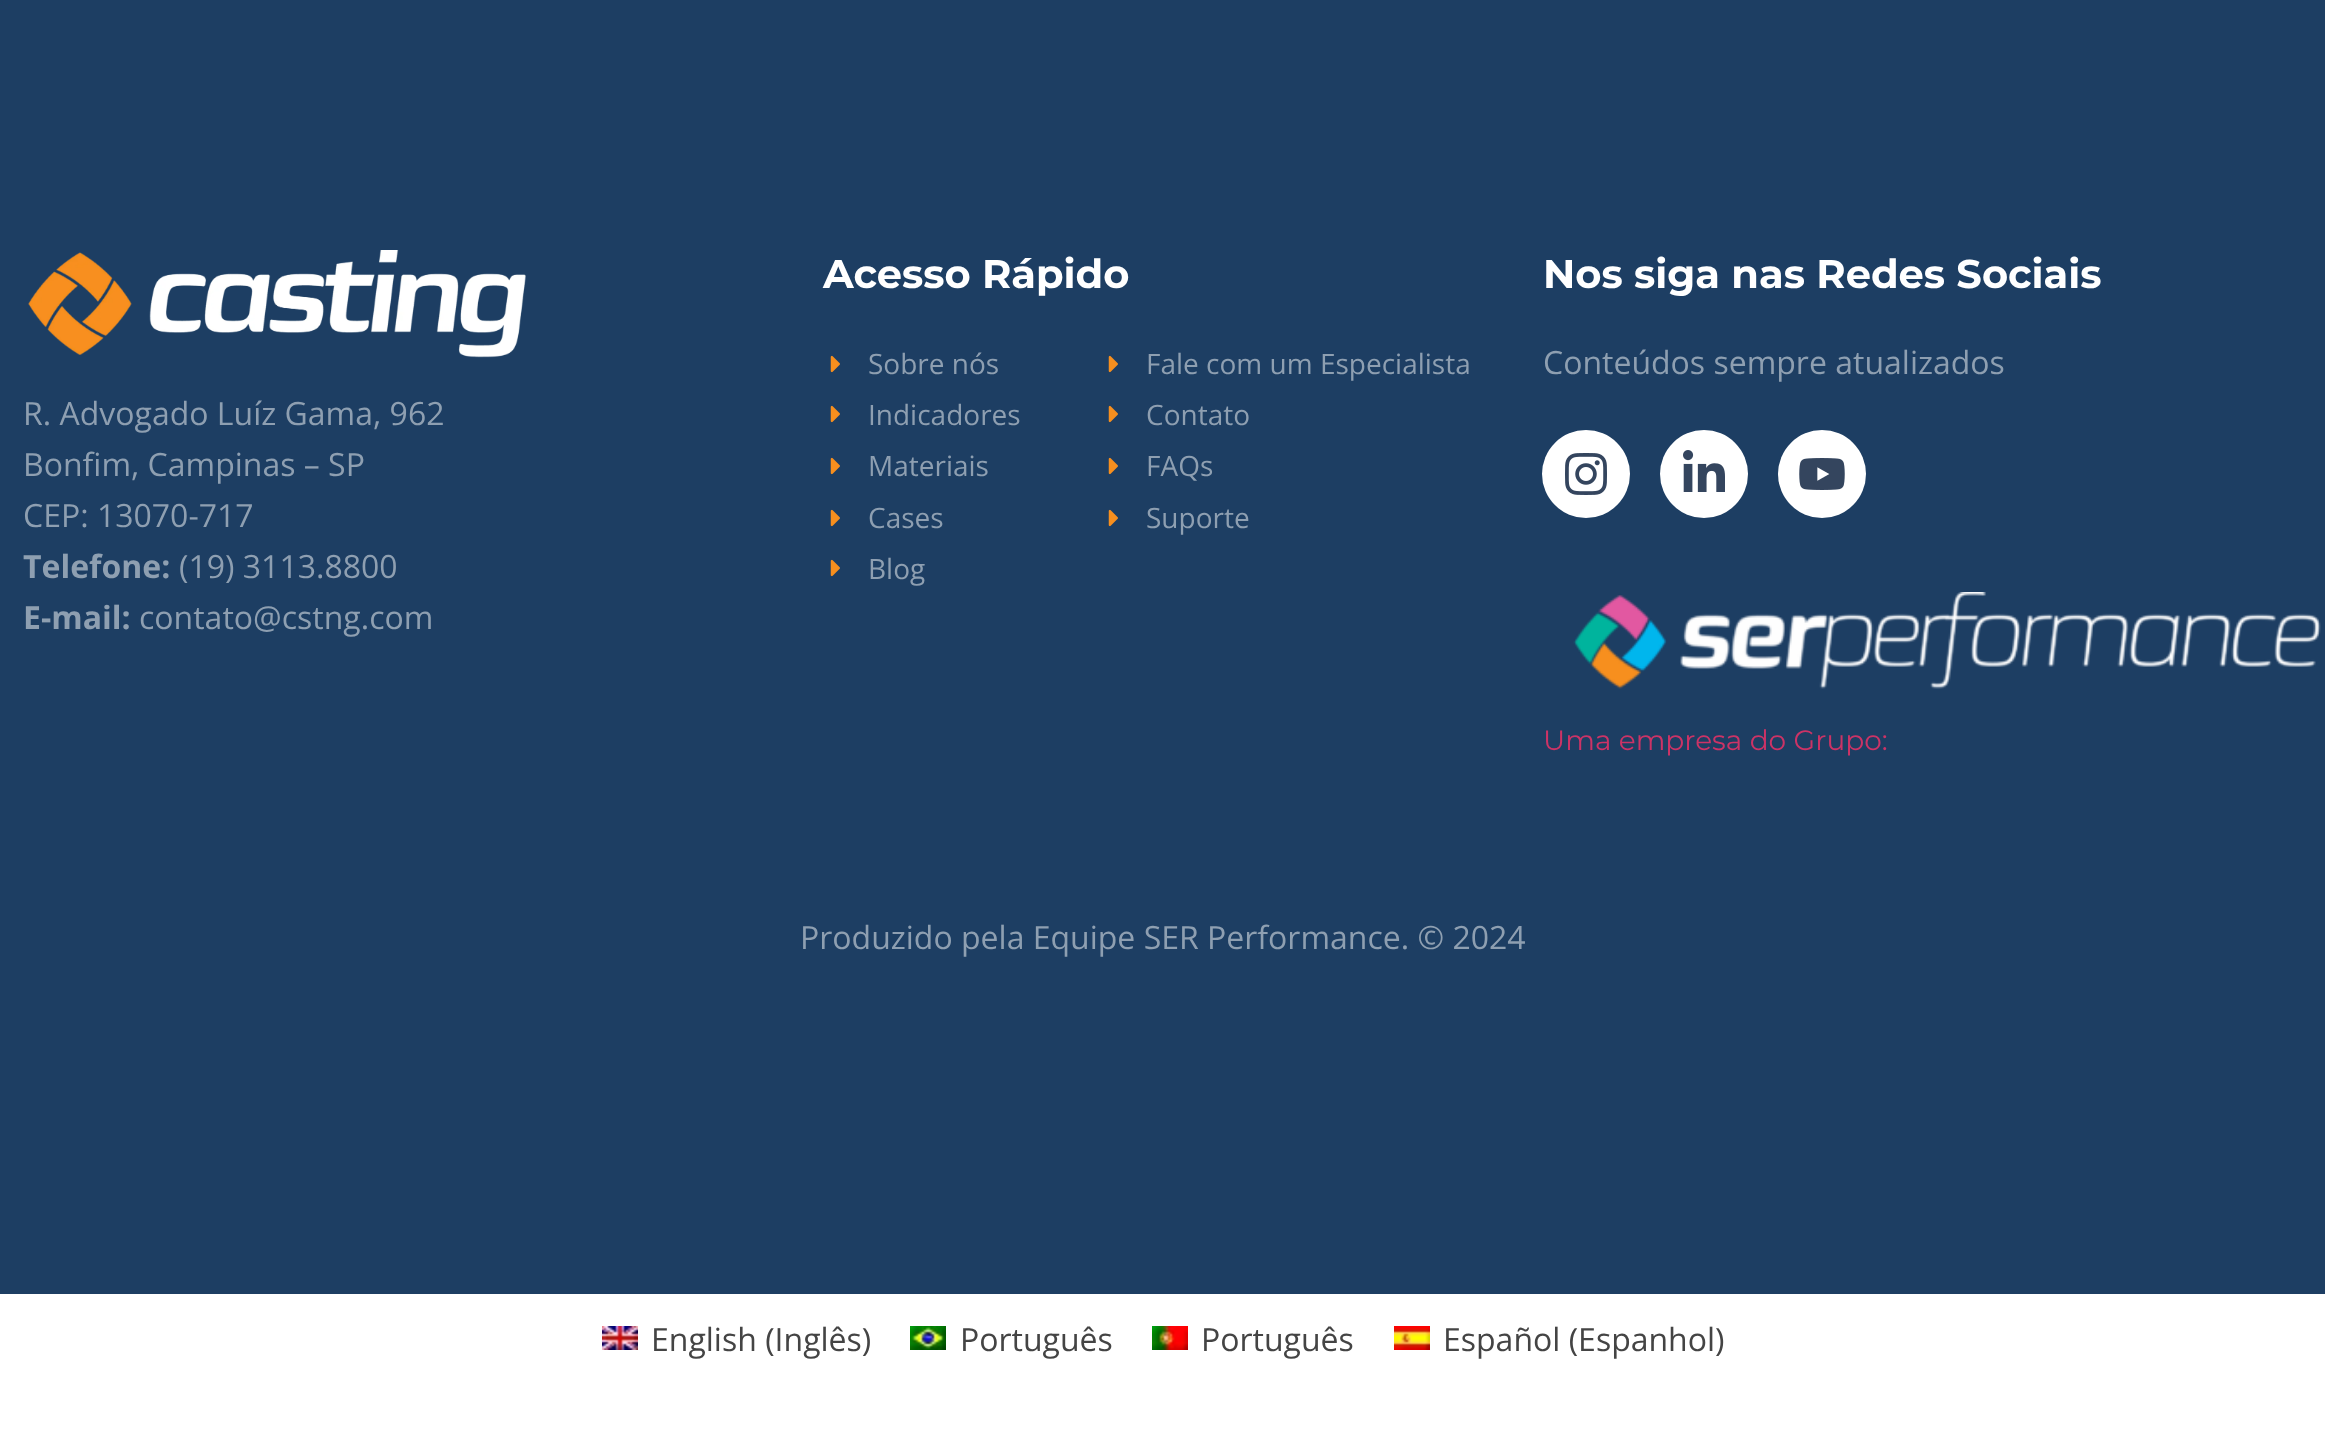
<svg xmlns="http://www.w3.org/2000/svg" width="2325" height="1441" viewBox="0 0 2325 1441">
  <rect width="100%" height="100%" fill="#fff"/>
  <path d="M0 0h2325v1294H0z" fill="#1d3e63"/>
  <image x="28" y="250" width="498" height="108" href="img/1.png"/>
  <image x="830" y="355" width="10" height="18" href="img/2.png"/>
  <image x="830" y="405" width="10" height="18" href="img/2.png"/>
  <image x="830" y="457" width="10" height="18" href="img/2.png"/>
  <image x="830" y="509" width="10" height="18" href="img/2.png"/>
  <image x="830" y="559" width="10" height="18" href="img/2.png"/>
  <image x="1108" y="355" width="10" height="18" href="img/2.png"/>
  <image x="1108" y="405" width="10" height="18" href="img/2.png"/>
  <image x="1108" y="457" width="10" height="18" href="img/2.png"/>
  <image x="1108" y="509" width="10" height="18" href="img/2.png"/>
  <circle cx="1586" cy="474" r="44" fill="#fff"/>
  <image x="1565" y="453" width="42" height="42" href="img/3.png"/>
  <circle cx="1704" cy="474" r="44" fill="#fff"/>
  <image x="1683" y="450" width="42" height="42" href="img/4.png"/>
  <circle cx="1822" cy="474" r="44" fill="#fff"/>
  <image x="1799" y="458" width="46" height="32" href="img/5.png"/>
  <image x="1573" y="592" width="748" height="97" href="img/6.png"/>
  <image x="602" y="1326" width="36" height="24" href="img/7.png"/>
  <image x="910" y="1326" width="36" height="24" href="img/8.png"/>
  <image x="1152" y="1326" width="36" height="24" href="img/9.png"/>
  <image x="1394" y="1326" width="36" height="24" href="img/10.png"/>
  <g font-family="Open Sans" font-size="32" fill="#8e9fb1">
    <text x="23" y="425">R. Advogado Luíz Gama, 962</text>
    <text x="23" y="476">Bonfim, Campinas – SP</text>
    <text x="23" y="527">CEP: 13070-717</text>
  </g>
  <text x="23" y="578" font-family="Open Sans" font-size="32" font-weight="bold" fill="#8e9fb1">Telefone:</text>
  <text x="179" y="578" font-family="Open Sans" font-size="32" fill="#8e9fb1">(19) 3113.8800</text>
  <text x="23" y="629" font-family="Open Sans" font-size="32" font-weight="bold" fill="#8e9fb1">E-mail:</text>
  <text x="139" y="629" font-family="Open Sans" font-size="32" fill="#8e9fb1">contato@cstng.com</text>
  <text x="823" y="288" font-family="Montserrat" font-size="40" font-weight="bold" fill="#fff">Acesso Rápido</text>
  <g font-family="Open Sans" font-size="28" fill="#8e9fb1">
    <text x="868" y="374">Sobre nós</text>
    <text x="868" y="425">Indicadores</text>
    <text x="868" y="476">Materiais</text>
    <text x="868" y="528">Cases</text>
    <text x="868" y="579">Blog</text>
    <text x="1146" y="374">Fale com um Especialista</text>
    <text x="1146" y="425">Contato</text>
    <text x="1146" y="476">FAQs</text>
    <text x="1146" y="528">Suporte</text>
  </g>
  <text x="1543" y="288" font-family="Montserrat" font-size="40" font-weight="bold" fill="#fff">Nos siga nas Redes Sociais</text>
  <text x="1543" y="374" font-family="Open Sans" font-size="32" fill="#8e9fb1">Conteúdos sempre atualizados</text>
  <text x="1543" y="750" font-family="Montserrat" font-size="28" fill="#c36">Uma empresa do Grupo:</text>
  <text x="800" y="949" font-family="Open Sans" font-size="32" fill="#8e9fb1">Produzido pela Equipe SER Performance. © 2024</text>
  <g font-family="Open Sans" font-size="32" fill="#444">
    <text x="651" y="1351">English (Inglês)</text>
    <text x="960" y="1351">Português</text>
    <text x="1201" y="1351">Português</text>
    <text x="1443" y="1351">Español (Espanhol)</text>
  </g>
</svg>
